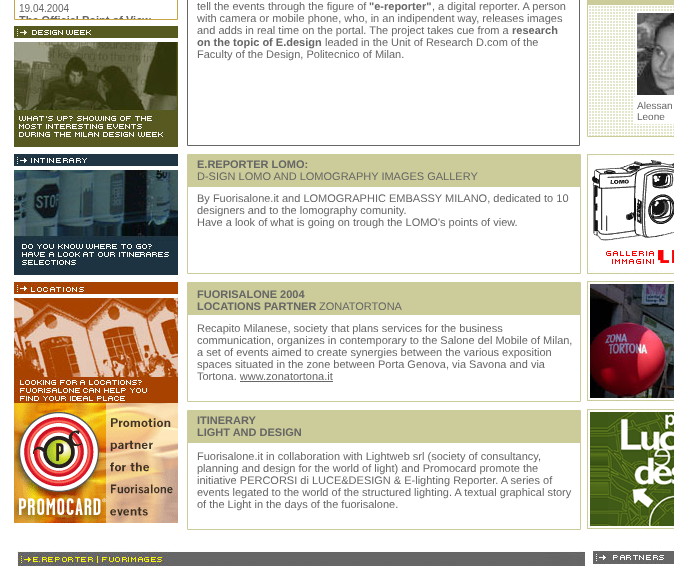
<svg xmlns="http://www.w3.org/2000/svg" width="674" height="566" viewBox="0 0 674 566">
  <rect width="100%" height="100%" fill="#fff"/>
  <path d="M14.5 -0.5h163v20H14.5z" fill="none" stroke="#c7a446"/>
  <image x="19" y="4" width="132" height="15" href="img/1.png"/>
  <image x="14" y="26" width="164" height="12" href="img/2.png"/>
  <image x="14" y="42" width="164" height="105" href="img/3.png"/>
  <image x="14" y="154" width="164" height="12" href="img/4.png"/>
  <image x="14" y="170" width="164" height="105" href="img/5.png"/>
  <image x="14" y="282" width="164" height="12" href="img/6.png"/>
  <image x="14" y="298" width="164" height="105" href="img/7.png"/>
  <image x="14" y="403" width="164" height="120" href="img/8.png"/>
  <path d="M187.5 -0.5h392v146H187.5z" fill="none" stroke="#666"/>
  <image x="588" y="5" width="1" height="131" href="img/9.png"/>
  <path d="M587.5 -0.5h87v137H587.5z" fill="none" stroke="#cc9"/>
  <path d="M588 0h86v5H588z" fill="#cccc9a"/>
  <image x="589" y="5" width="85" height="131" href="img/10.png"/>
  <path d="M636 12h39v84H636z" fill="none" stroke="#fff" stroke-width="2"/>
  <image x="637" y="13" width="37" height="82" href="img/11.png"/>
  <path d="M634 97h40v27H634z" fill="#fff"/>
  <path d="M187.5 154.5h393v119H187.5z" fill="none" stroke="#cccc9a"/>
  <path d="M188 155h392v32H188z" fill="#cccc9a"/>
  <image x="587" y="154" width="87" height="120" href="img/12.png"/>
  <path d="M187.5 282.5h393v119H187.5z" fill="none" stroke="#cccc9a"/>
  <path d="M188 283h392v32H188z" fill="#cccc9a"/>
  <path d="M240 381h93v1H240z" fill="#666"/>
  <image x="587" y="281" width="87" height="120" href="img/13.png"/>
  <path d="M187.5 410.5h393v119H187.5z" fill="none" stroke="#cccc9a"/>
  <path d="M188 411h392v32H188z" fill="#cccc9a"/>
  <image x="587" y="409" width="87" height="120" href="img/14.png"/>
  <image x="17" y="551" width="568" height="15" href="img/15.png"/>
  <image x="593" y="551" width="81" height="13" href="img/16.png"/>
  <text x="197" y="10" font-family="Liberation Sans" font-size="11" fill="#666">tell the events through the figure of</text>
  <text x="369" y="10" font-family="Liberation Sans" font-size="11" font-weight="bold" fill="#666">"e-reporter"</text>
  <g font-family="Liberation Sans" font-size="11" fill="#666">
    <text x="432" y="10">, a digital reporter. A person</text>
    <text x="197" y="22">with camera or mobile phone, who, in an indipendent way, releases images</text>
    <text x="197" y="34">and adds in real time on the portal. The project takes cue from a</text>
  </g>
  <g font-family="Liberation Sans" font-size="11" font-weight="bold" fill="#666">
    <text x="512" y="34">research</text>
    <text x="197" y="46">on the topic of E.design</text>
  </g>
  <g font-family="Liberation Sans" font-size="11" fill="#666">
    <text x="325" y="46">leaded in the Unit of Research D.com of the</text>
    <text x="197" y="58">Faculty of the Design, Politecnico of Milan.</text>
  </g>
  <g font-family="Liberation Sans" font-size="10" fill="#666">
    <text x="637" y="109">Alessan</text>
    <text x="637" y="120">Leone</text>
  </g>
  <text x="197" y="168" font-family="Liberation Sans" font-size="11" font-weight="bold" fill="#666">E.REPORTER LOMO:</text>
  <g font-family="Liberation Sans" font-size="11" fill="#666">
    <text x="197" y="180">D-SIGN LOMO AND LOMOGRAPHY IMAGES GALLERY</text>
    <text x="197" y="202">By Fuorisalone.it and LOMOGRAPHIC EMBASSY MILANO, dedicated to 10</text>
    <text x="197" y="214">designers and to the lomography comunity.</text>
    <text x="197" y="226">Have a look of what is going on trough the LOMO's points of view.</text>
  </g>
  <g font-family="Liberation Sans" font-size="11" font-weight="bold" fill="#666">
    <text x="197" y="298">FUORISALONE 2004</text>
    <text x="197" y="310">LOCATIONS PARTNER</text>
  </g>
  <g font-family="Liberation Sans" font-size="11" fill="#666">
    <text x="319" y="310">ZONATORTONA</text>
    <text x="197" y="332">Recapito Milanese, society that plans services for the business</text>
    <text x="197" y="344">communication, organizes in contemporary to the Salone del Mobile of Milan,</text>
    <text x="197" y="356">a set of events aimed to create synergies between the various exposition</text>
    <text x="197" y="368">spaces situated in the zone between Porta Genova, via Savona and via</text>
    <text x="197" y="380">Tortona. www.zonatortona.it</text>
  </g>
  <g font-family="Liberation Sans" font-size="11" font-weight="bold" fill="#666">
    <text x="197" y="424">ITINERARY</text>
    <text x="197" y="436">LIGHT AND DESIGN</text>
  </g>
  <g font-family="Liberation Sans" font-size="11" fill="#666">
    <text x="197" y="460">Fuorisalone.it in collaboration with Lightweb srl (society of consultancy,</text>
    <text x="197" y="472">planning and design for the world of light) and Promocard promote the</text>
    <text x="197" y="484">initiative PERCORSI di LUCE&amp;DESIGN &amp; E-lighting Reporter. A series of</text>
    <text x="197" y="496">events legated to the world of the structured lighting. A textual graphical story</text>
    <text x="197" y="508">of the Light in the days of the fuorisalone.</text>
  </g>
</svg>
